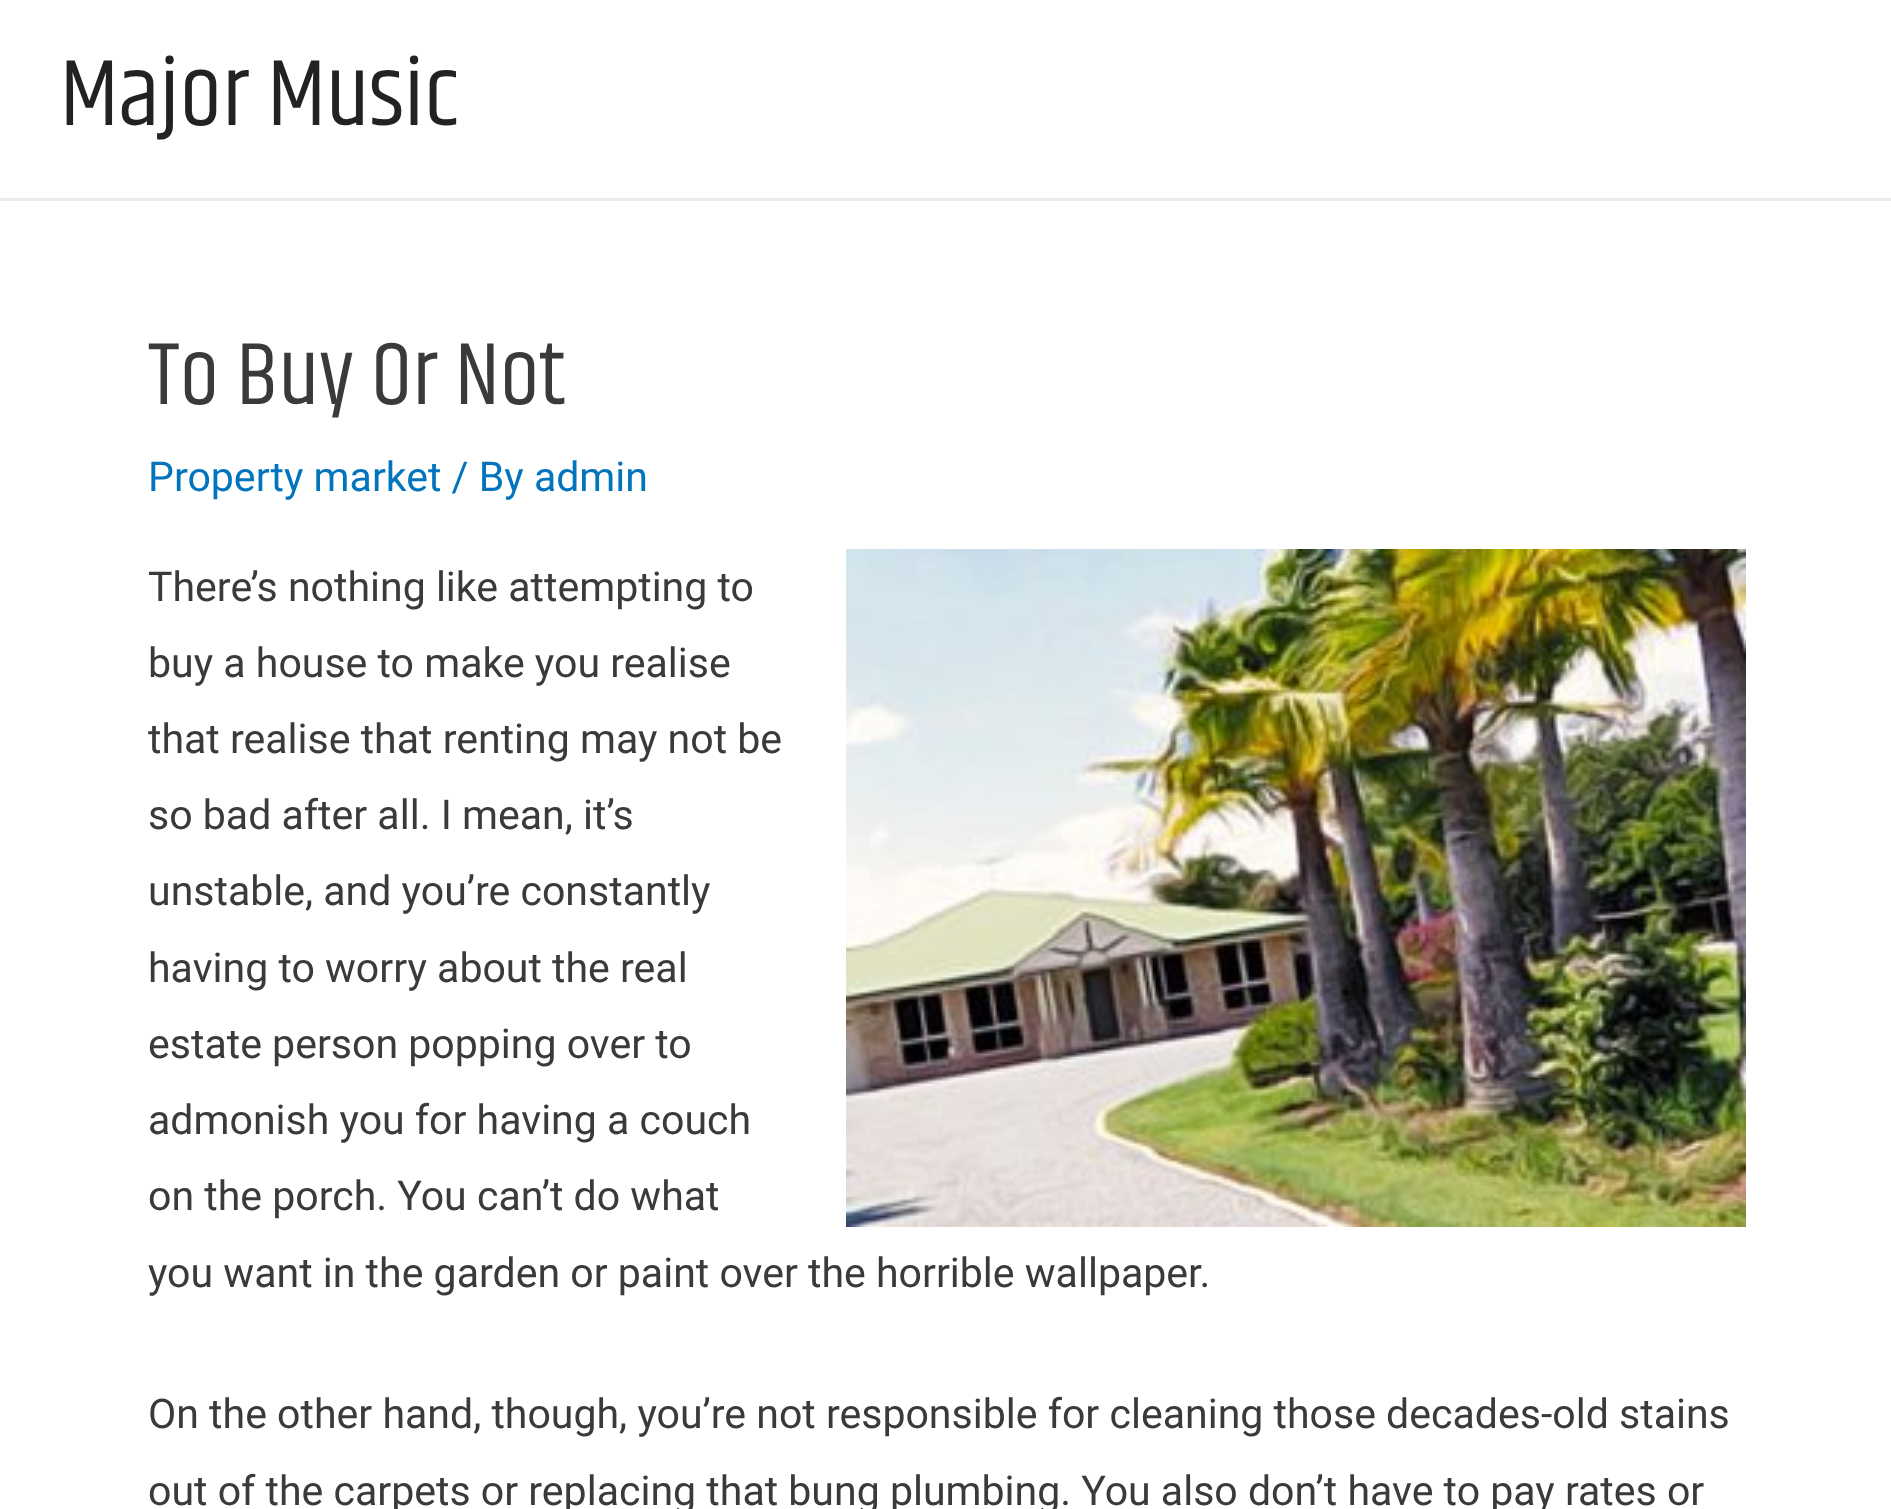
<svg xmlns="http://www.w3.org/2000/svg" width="1891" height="1509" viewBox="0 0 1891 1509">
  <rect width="100%" height="100%" fill="#fff"/>
  <path d="M0 198h1891v3H0z" fill="#eaeaea"/>
  <image x="846" y="549" width="900" height="678" href="img/1.png"/>
  <text x="60" y="125" font-family="Khand" font-size="96" fill="#222">Major Music</text>
  <text x="148" y="404" font-family="Khand" font-size="90" fill="#3a3a3a">To Buy Or Not</text>
  <text x="148" y="491" font-family="Roboto" font-size="41.05" fill="#0274be">Property market / By admin</text>
  <g font-family="Roboto" font-size="41.05" fill="#3a3a3a">
    <text x="148" y="601">There’s nothing like attempting to</text>
    <text x="148" y="677">buy a house to make you realise</text>
    <text x="148" y="753">that realise that renting may not be</text>
    <text x="148" y="829">so bad after all. I mean, it’s</text>
    <text x="148" y="905">unstable, and you’re constantly</text>
    <text x="148" y="982">having to worry about the real</text>
    <text x="148" y="1058">estate person popping over to</text>
    <text x="148" y="1134">admonish you for having a couch</text>
    <text x="148" y="1210">on the porch. You can’t do what</text>
    <text x="148" y="1287">you want in the garden or paint over the horrible wallpaper.</text>
    <text x="148" y="1428">On the other hand, though, you’re not responsible for cleaning those decades-old stains</text>
    <text x="148" y="1505">out of the carpets or replacing that bung plumbing. You also don’t have to pay rates or</text>
  </g>
</svg>
